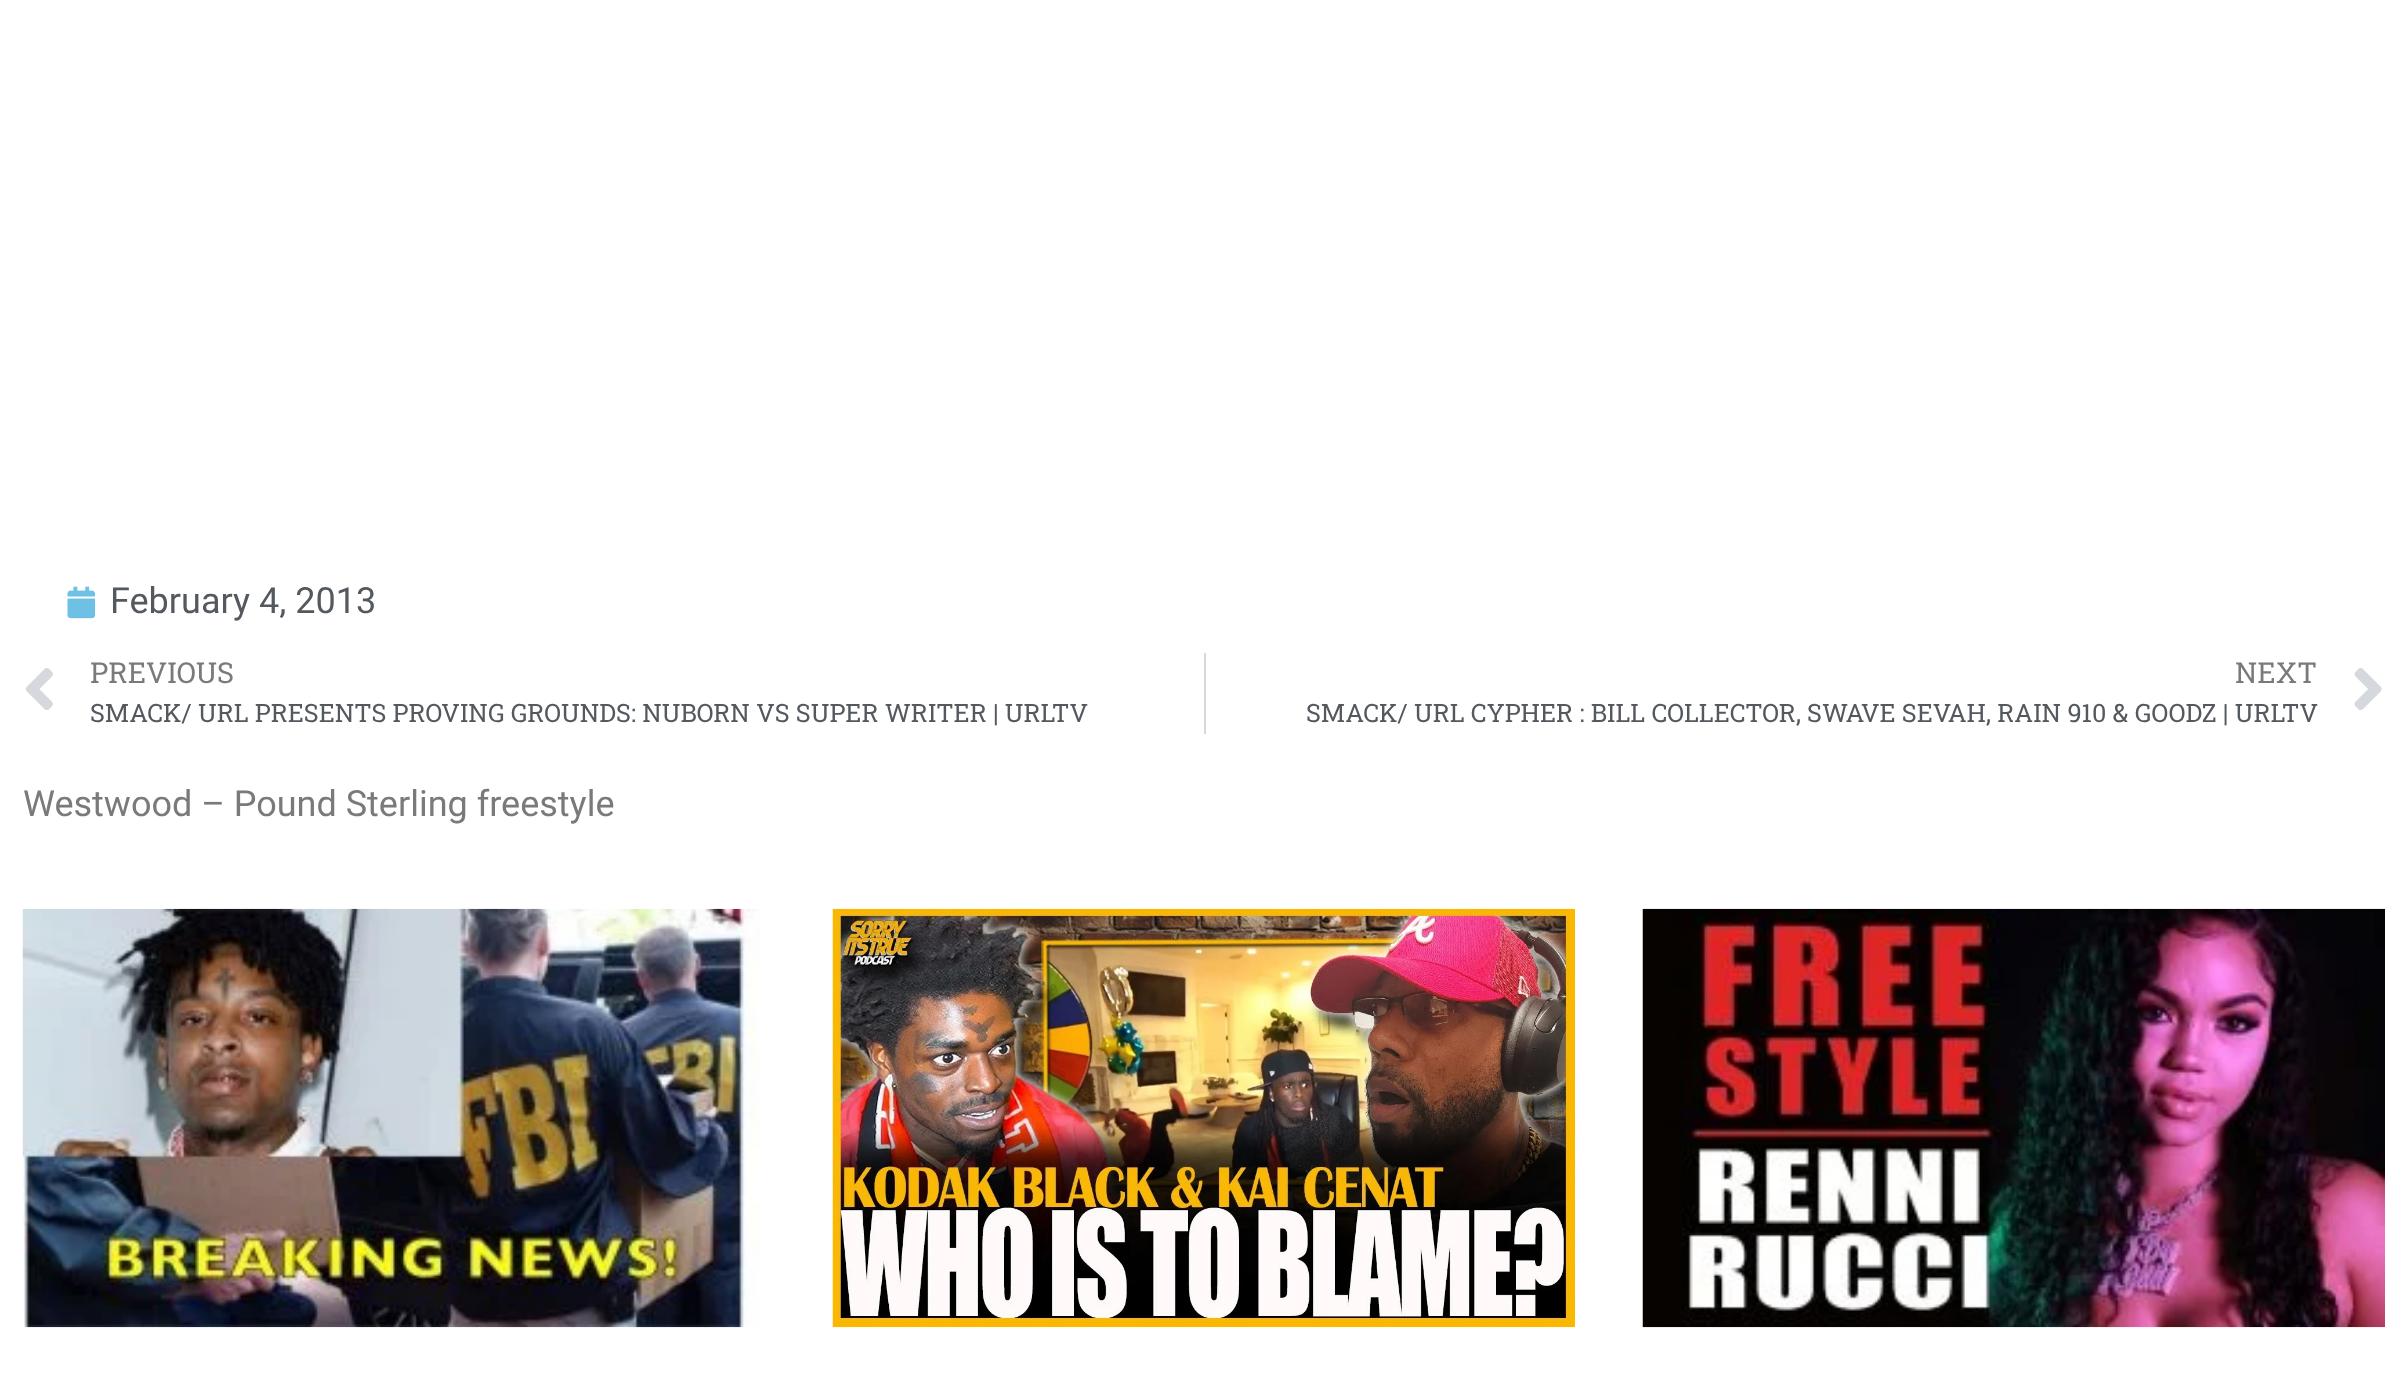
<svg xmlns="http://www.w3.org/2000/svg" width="2406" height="1378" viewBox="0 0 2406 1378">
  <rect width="100%" height="100%" fill="#fff"/>
  <image x="67" y="586" width="29" height="33" href="img/1.png"/>
  <image x="25" y="668" width="28" height="42" href="img/2.png"/>
  <path d="M1204 653h2v81H1204z" fill="#d5d8dc"/>
  <image x="2354" y="668" width="28" height="43" href="img/3.png"/>
  <image x="22" y="908" width="738" height="420" href="img/4.png"/>
  <image x="832" y="908" width="743" height="420" href="img/5.png"/>
  <image x="1642" y="908" width="743" height="420" href="img/6.png"/>
  <text x="110" y="613" font-family="Roboto" font-size="36" fill="#54595f">February 4, 2013</text>
  <text x="90" y="683" font-family="Roboto Slab" font-size="28.75" fill="#7a7a7a">PREVIOUS</text>
  <text x="90" y="722" font-family="Roboto Slab" font-size="25.2" fill="#54595f">SMACK/ URL PRESENTS PROVING GROUNDS: NUBORN VS SUPER WRITER | URLTV</text>
  <text x="2235" y="683" font-family="Roboto Slab" font-size="28.75" fill="#7a7a7a">NEXT</text>
  <text x="1306" y="722" font-family="Roboto Slab" font-size="25.2" fill="#54595f">SMACK/ URL CYPHER : BILL COLLECTOR, SWAVE SEVAH, RAIN 910 &amp; GOODZ | URLTV</text>
  <text x="23" y="816" font-family="Roboto" font-size="36" fill="#7a7a7a">Westwood – Pound Sterling freestyle</text>
</svg>
